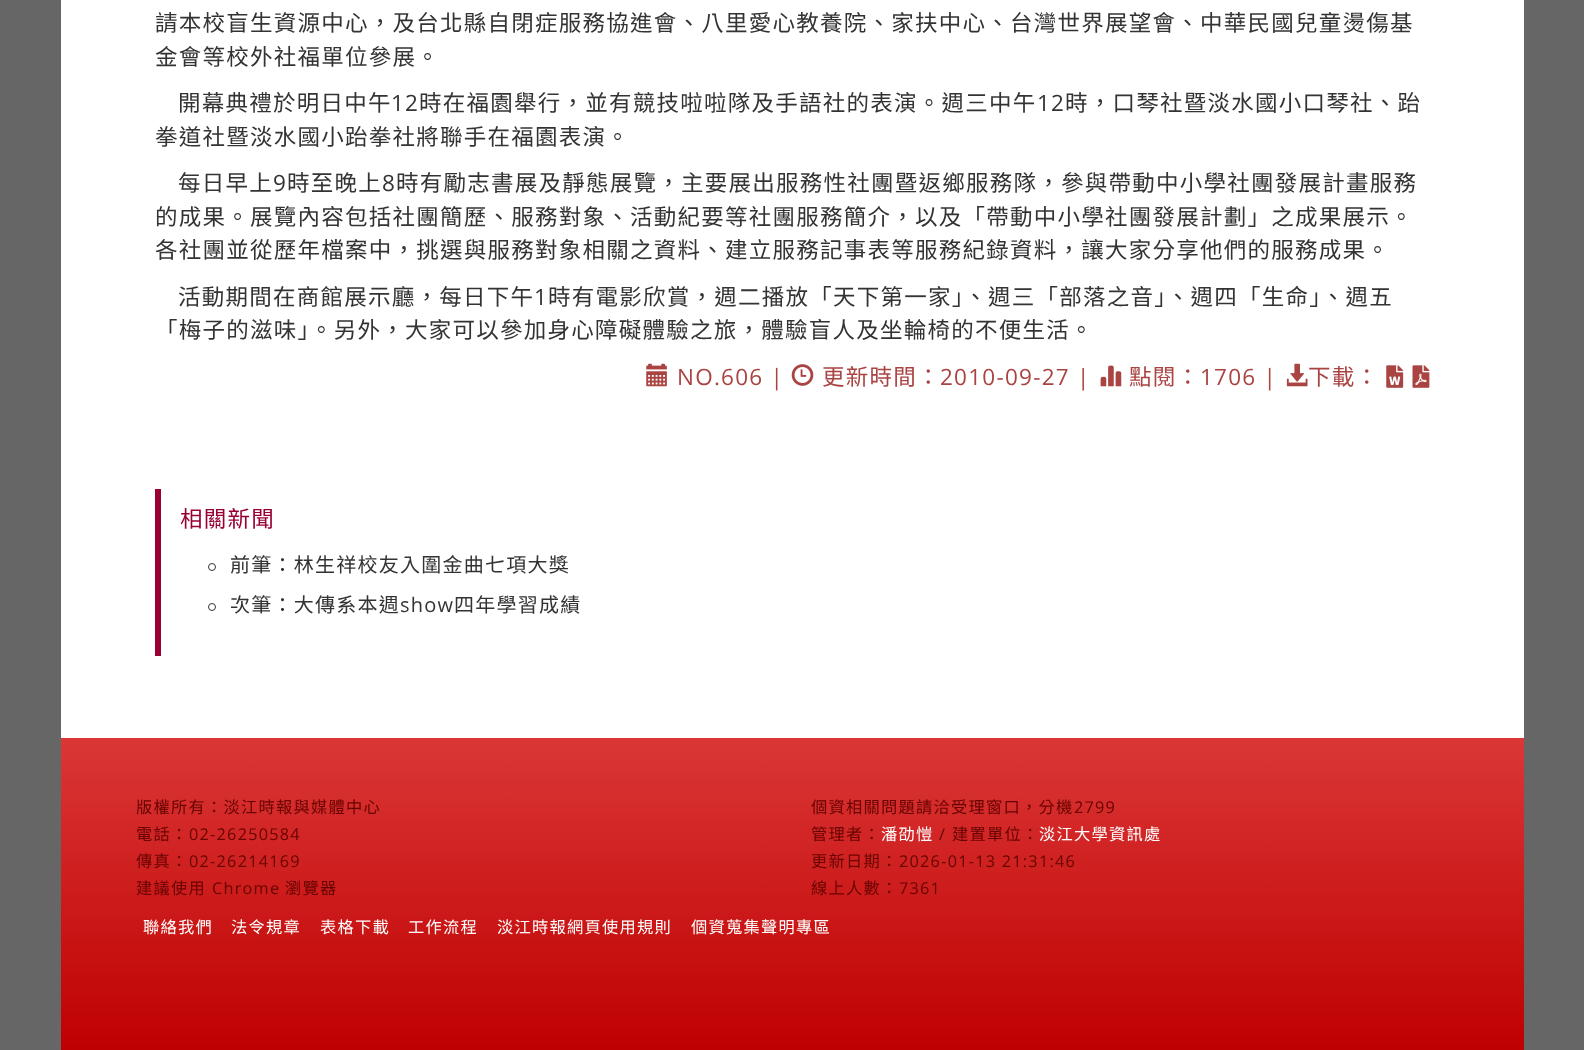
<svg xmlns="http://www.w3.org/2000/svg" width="1584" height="1050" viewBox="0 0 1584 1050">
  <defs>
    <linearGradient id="g1" gradientUnits="userSpaceOnUse" x1="793" y1="737" x2="793" y2="1050"><stop offset="0" stop-color="#db3737"/><stop offset="1" stop-color="#bf0000"/></linearGradient>
  </defs>
  <rect width="100%" height="100%" fill="#666"/>
  <path d="M61 0h1463v738H61z" fill="#fff"/>
  <image x="646" y="363" width="21" height="24" href="img/1.png"/>
  <image x="791" y="364" width="23" height="22" href="img/2.png"/>
  <image x="1100" y="365" width="22" height="22" href="img/3.png"/>
  <image x="1286" y="363" width="22" height="24" href="img/4.png"/>
  <image x="1386" y="365" width="18" height="23" href="img/5.png"/>
  <image x="1412" y="365" width="18" height="23" href="img/6.png"/>
  <path d="M155 489h6v167H155z" fill="#990134"/>
  <circle cx="212" cy="567" r="3.5" fill="none" stroke="#333"/>
  <circle cx="212" cy="607" r="3.5" fill="none" stroke="#333"/>
  <path d="M61 738h1463v312H61z" fill="url(#g1)"/>
  <g font-family="Noto Sans CJK TC" font-size="22.5" letter-spacing="1.25" fill="#333">
    <text x="155" y="31">請本校盲生資源中心，及台北縣自閉症服務協進會、八里愛心教養院、家扶中心、台灣世界展望會、中華民國兒童燙傷基</text>
    <text x="155" y="65">金會等校外社福單位參展。</text>
    <text x="178" y="111">開幕典禮於明日中午</text>
  </g>
  <text x="391" y="111" font-family="Open Sans" font-size="22.5" letter-spacing="1.25" fill="#333">12</text>
  <text x="419" y="111" font-family="Noto Sans CJK TC" font-size="22.5" letter-spacing="1.25" fill="#333">時在福園舉行，並有競技啦啦隊及手語社的表演。週三中午</text>
  <text x="1037" y="111" font-family="Open Sans" font-size="22.5" letter-spacing="1.25" fill="#333">12</text>
  <g font-family="Noto Sans CJK TC" font-size="22.5" letter-spacing="1.25" fill="#333">
    <text x="1065" y="111">時，口琴社暨淡水國小口琴社、跆</text>
    <text x="155" y="145">拳道社暨淡水國小跆拳社將聯手在福園表演。</text>
    <text x="178" y="191">每日早上</text>
  </g>
  <text x="273" y="191" font-family="Open Sans" font-size="22.5" letter-spacing="1.25" fill="#333">9</text>
  <text x="287" y="191" font-family="Noto Sans CJK TC" font-size="22.5" letter-spacing="1.25" fill="#333">時至晚上</text>
  <text x="382" y="191" font-family="Open Sans" font-size="22.5" letter-spacing="1.25" fill="#333">8</text>
  <g font-family="Noto Sans CJK TC" font-size="22.5" letter-spacing="1.25" fill="#333">
    <text x="396" y="191">時有勵志書展及靜態展覽，主要展出服務性社團暨返鄉服務隊，參與帶動中小學社團發展計畫服務</text>
    <text x="155" y="225">的成果。展覽內容包括社團簡歷、服務對象、活動紀要等社團服務簡介，以及「帶動中小學社團發展計劃」之成果展示。</text>
    <text x="155" y="258">各社團並從歷年檔案中，挑選與服務對象相關之資料、建立服務記事表等服務紀錄資料，讓大家分享他們的服務成果。</text>
    <text x="178" y="305">活動期間在商館展示廳，每日下午</text>
  </g>
  <text x="534" y="305" font-family="Open Sans" font-size="22.5" letter-spacing="1.25" fill="#333">1</text>
  <g font-family="Noto Sans CJK TC" font-size="22.5" letter-spacing="1.25" fill="#333">
    <text x="548" y="305">時有電影欣賞，週二播放「天下第一家」、週三「部落之音」、週四「生命」、週五</text>
    <text x="155" y="338">「梅子的滋味」。另外，大家可以參加身心障礙體驗之旅，體驗盲人及坐輪椅的不便生活。</text>
  </g>
  <text x="677" y="385" font-family="Open Sans" font-size="22.5" letter-spacing="1.25" fill="#a94442">NO.606 |</text>
  <text x="822" y="385" font-family="Noto Sans CJK TC" font-size="22.5" letter-spacing="1.25" fill="#a94442">更新時間：</text>
  <text x="940" y="385" font-family="Open Sans" font-size="22.5" letter-spacing="1.25" fill="#a94442">2010-09-27 |</text>
  <text x="1129" y="385" font-family="Noto Sans CJK TC" font-size="22.5" letter-spacing="1.25" fill="#a94442">點閱：</text>
  <text x="1200" y="385" font-family="Open Sans" font-size="22.5" letter-spacing="1.25" fill="#a94442">1706 |</text>
  <text x="1308" y="385" font-family="Noto Sans CJK TC" font-size="22.5" letter-spacing="1.25" fill="#a94442">下載：</text>
  <text x="180" y="527" font-family="Noto Sans CJK TC" font-size="22.5" letter-spacing="1.25" fill="#990134">相關新聞</text>
  <g font-family="Noto Sans CJK TC" font-size="20" letter-spacing="1.25" fill="#333">
    <text x="230" y="572">前筆：林生祥校友入圍金曲七項大獎</text>
    <text x="230" y="612">次筆：大傳系本週</text>
  </g>
  <text x="400" y="612" font-family="Open Sans" font-size="20" letter-spacing="1.25" fill="#333">show</text>
  <text x="454" y="612" font-family="Noto Sans CJK TC" font-size="20" letter-spacing="1.25" fill="#333">四年學習成績</text>
  <g font-family="Noto Sans CJK TC" font-size="16.25" letter-spacing="1.25" fill="#670400">
    <text x="136" y="813">版權所有：淡江時報與媒體中心</text>
    <text x="136" y="840">電話：</text>
  </g>
  <text x="189" y="840" font-family="Open Sans" font-size="16.25" letter-spacing="1.25" fill="#670400">02-26250584</text>
  <text x="136" y="867" font-family="Noto Sans CJK TC" font-size="16.25" letter-spacing="1.25" fill="#670400">傳真：</text>
  <text x="189" y="867" font-family="Open Sans" font-size="16.25" letter-spacing="1.25" fill="#670400">02-26214169</text>
  <text x="136" y="894" font-family="Noto Sans CJK TC" font-size="16.25" letter-spacing="1.25" fill="#670400">建議使用</text>
  <text x="212" y="894" font-family="Open Sans" font-size="16.25" letter-spacing="1.25" fill="#670400">Chrome</text>
  <g font-family="Noto Sans CJK TC" font-size="16.25" letter-spacing="1.25" fill="#670400">
    <text x="285" y="894">瀏覽器</text>
    <text x="811" y="813">個資相關問題請洽受理窗口，分機</text>
  </g>
  <text x="1074" y="813" font-family="Open Sans" font-size="16.25" letter-spacing="1.25" fill="#670400">2799</text>
  <text x="811" y="840" font-family="Noto Sans CJK TC" font-size="16.25" letter-spacing="1.25" fill="#670400">管理者：</text>
  <text x="881" y="840" font-family="Noto Sans CJK TC" font-size="16.25" letter-spacing="1.25" fill="#fff">潘劭愷</text>
  <text x="939" y="840" font-family="Open Sans" font-size="16.25" letter-spacing="1.25" fill="#670400">/</text>
  <text x="952" y="840" font-family="Noto Sans CJK TC" font-size="16.25" letter-spacing="1.25" fill="#670400">建置單位：</text>
  <text x="1039" y="840" font-family="Noto Sans CJK TC" font-size="16.25" letter-spacing="1.25" fill="#fff">淡江大學資訊處</text>
  <text x="811" y="867" font-family="Noto Sans CJK TC" font-size="16.25" letter-spacing="1.25" fill="#670400">更新日期：</text>
  <text x="899" y="867" font-family="Open Sans" font-size="16.25" letter-spacing="1.25" fill="#670400">2026-01-13 21:31:46</text>
  <text x="811" y="894" font-family="Noto Sans CJK TC" font-size="16.25" letter-spacing="1.25" fill="#670400">線上人數：</text>
  <text x="899" y="894" font-family="Open Sans" font-size="16.25" letter-spacing="1.25" fill="#670400">7361</text>
  <g font-family="Noto Sans CJK TC" font-size="16.25" letter-spacing="1.25" fill="#fff">
    <text x="143" y="933">聯絡我們</text>
    <text x="231" y="933">法令規章</text>
    <text x="320" y="933">表格下載</text>
    <text x="408" y="933">工作流程</text>
    <text x="497" y="933">淡江時報網頁使用規則</text>
    <text x="691" y="933">個資蒐集聲明專區</text>
  </g>
</svg>
